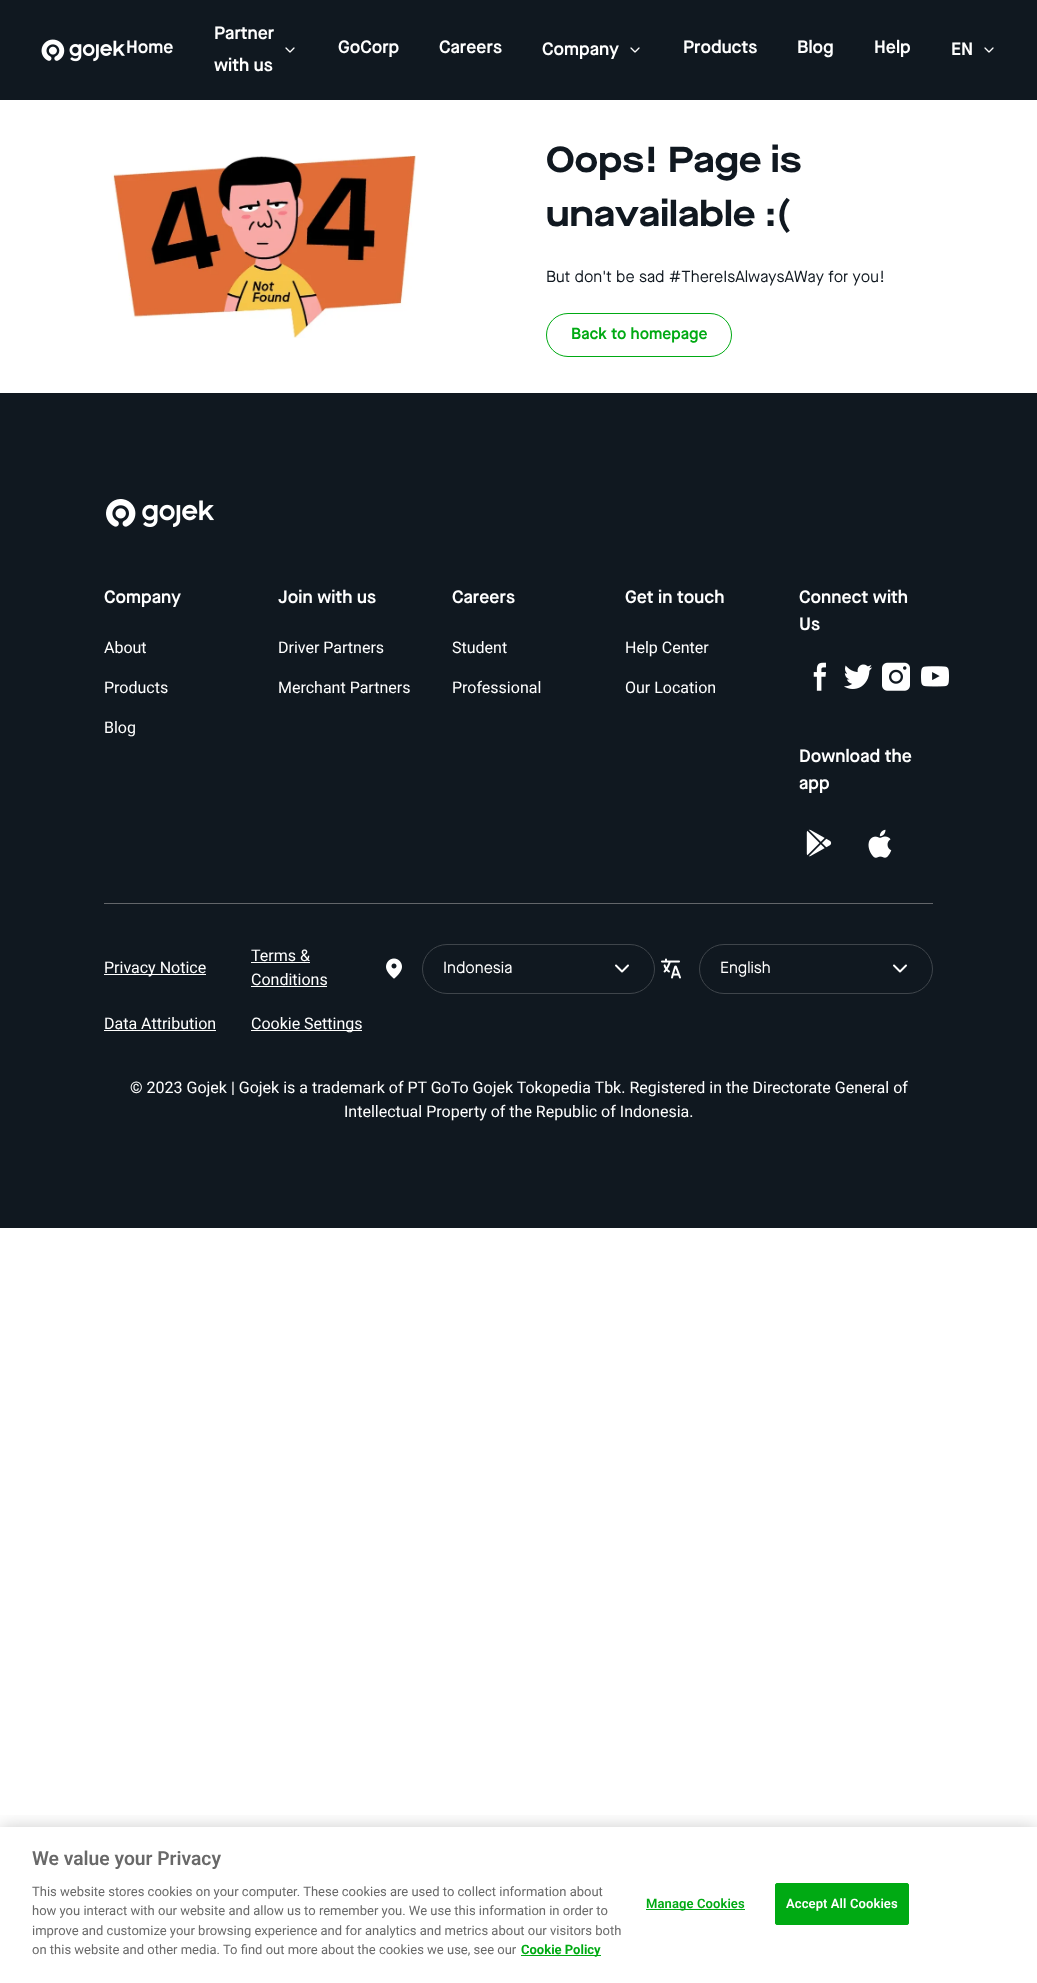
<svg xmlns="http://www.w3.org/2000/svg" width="1037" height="1983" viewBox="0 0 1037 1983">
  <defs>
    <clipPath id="clip1"><path d="M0 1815h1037v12H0z"/></clipPath>
  </defs>
  <rect width="100%" height="100%" fill="#fff"/>
  <path d="M0 0h1037v100H0z" fill="#101820"/>
  <image x="41" y="39" width="84" height="23" href="img/1.png"/>
  <image x="285" y="47" width="10" height="6" href="img/2.png"/>
  <image x="630" y="47" width="10" height="6" href="img/2.png"/>
  <image x="984" y="47" width="10" height="6" href="img/2.png"/>
  <image x="111" y="155" width="305" height="183" href="img/3.png"/>
  <rect x="546.5" y="313.5" width="185" height="43" rx="21.5" fill="none" stroke="#00aa13"/>
  <path d="M0 393h1037v835H0z" fill="#101820"/>
  <path d="M104 903h829v1H104z" fill="#63666a"/>
  <image x="106" y="499" width="108" height="28" href="img/4.png"/>
  <image x="813" y="662" width="13" height="29" href="img/5.png"/>
  <image x="844" y="664" width="28" height="25" href="img/6.png"/>
  <image x="882" y="662" width="28" height="29" href="img/7.png"/>
  <image x="921" y="666" width="28" height="21" href="img/8.png"/>
  <image x="806" y="829" width="26" height="28" href="img/9.png"/>
  <image x="868" y="829" width="24" height="29" href="img/10.png"/>
  <path d="M104 974h102v1H104z" fill="#fff"/>
  <path d="M251 962h59v1H251z" fill="#fff"/>
  <path d="M251 986h76v1H251z" fill="#fff"/>
  <path d="M104 1030h112v1H104z" fill="#fff"/>
  <path d="M251 1030h111v1H251z" fill="#fff"/>
  <image x="386" y="958" width="16" height="21" href="img/11.png"/>
  <rect x="422.5" y="944.5" width="232" height="49" rx="24.5" fill="none" stroke="#3f454b"/>
  <image x="615" y="964" width="14" height="9" href="img/12.png"/>
  <image x="661" y="958" width="20" height="21" href="img/13.png"/>
  <rect x="699.5" y="944.5" width="233" height="49" rx="24.5" fill="none" stroke="#3f454b"/>
  <image x="893" y="964" width="14" height="9" href="img/12.png"/>
  <g clip-path="url(#clip1)">
    <path d="M0 1827h1037v156H0z" fill="#00000033" filter="blur(9px)"/>
  </g>
  <path d="M521 1955h80v1H521z" fill="#00aa13"/>
  <path d="M646 1909h99v1H646z" fill="#00aa13"/>
  <rect x="775.5" y="1883.5" width="133" height="41" rx="1.5" fill="#00aa13" stroke="#00aa13"/>
  <g font-family="Maison Neue" font-size="18" font-weight="600" fill="#fff">
    <text x="126" y="53">Home</text>
    <text x="214" y="39">Partner</text>
    <text x="214" y="71">with us</text>
    <text x="338" y="53">GoCorp</text>
    <text x="439" y="53">Careers</text>
    <text x="542" y="55">Company</text>
    <text x="683" y="53">Products</text>
    <text x="797" y="53">Blog</text>
    <text x="874" y="53">Help</text>
    <text x="951" y="55">EN</text>
  </g>
  <g font-family="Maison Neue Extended" font-size="36" font-weight="bold" fill="#101820">
    <text x="546" y="172">Oops! Page is</text>
    <text x="546" y="226">unavailable :(</text>
  </g>
  <text x="546" y="282" font-family="Maison Neue" font-size="16" fill="#101820">But don't be sad #ThereIsAlwaysAWay for you!</text>
  <text x="571" y="339" font-family="Maison Neue" font-size="16" font-weight="600" fill="#00aa13">Back to homepage</text>
  <text x="104" y="603" font-family="Maison Neue" font-size="18" font-weight="600" fill="#fff">Company</text>
  <g font-family="Roboto" font-size="16" fill="#fff">
    <text x="104" y="653">About</text>
    <text x="104" y="693">Products</text>
    <text x="104" y="733">Blog</text>
  </g>
  <text x="278" y="603" font-family="Maison Neue" font-size="18" font-weight="600" fill="#fff">Join with us</text>
  <g font-family="Roboto" font-size="16" fill="#fff">
    <text x="278" y="653">Driver Partners</text>
    <text x="278" y="693">Merchant Partners</text>
  </g>
  <text x="452" y="603" font-family="Maison Neue" font-size="18" font-weight="600" fill="#fff">Careers</text>
  <g font-family="Roboto" font-size="16" fill="#fff">
    <text x="452" y="653">Student</text>
    <text x="452" y="693">Professional</text>
  </g>
  <text x="625" y="603" font-family="Maison Neue" font-size="18" font-weight="600" fill="#fff">Get in touch</text>
  <g font-family="Roboto" font-size="16" fill="#fff">
    <text x="625" y="653">Help Center</text>
    <text x="625" y="693">Our Location</text>
  </g>
  <g font-family="Maison Neue" font-size="18" font-weight="600" fill="#fff">
    <text x="799" y="603">Connect with</text>
    <text x="799" y="630">Us</text>
    <text x="799" y="762">Download the</text>
    <text x="799" y="789">app</text>
  </g>
  <g font-family="Roboto" font-size="16" fill="#fff">
    <text x="104" y="973">Privacy Notice</text>
    <text x="251" y="961">Terms &amp;</text>
    <text x="251" y="985">Conditions</text>
    <text x="104" y="1029">Data Attribution</text>
    <text x="251" y="1029">Cookie Settings</text>
  </g>
  <g font-family="Maison Neue" font-size="16" fill="#fff">
    <text x="443" y="973">Indonesia</text>
    <text x="720" y="973">English</text>
  </g>
  <g font-family="Roboto" font-size="16" fill="#fff">
    <text x="130" y="1093">© 2023 Gojek | Gojek is a trademark of PT GoTo Gojek Tokopedia Tbk. Registered in the Directorate General of</text>
    <text x="344" y="1117">Intellectual Property of the Republic of Indonesia.</text>
  </g>
  <text x="32" y="1865" font-family="Roboto" font-size="19.25" font-weight="600" fill="#696969">We value your Privacy</text>
  <g font-family="Roboto" font-size="13" fill="#696969">
    <text x="32" y="1896">This website stores cookies on your computer. These cookies are used to collect information about</text>
    <text x="32" y="1915">how you interact with our website and allow us to remember you. We use this information in order to</text>
    <text x="32" y="1935">improve and customize your browsing experience and for analytics and metrics about our visitors both</text>
    <text x="32" y="1954">on this website and other media. To find out more about the cookies we use, see our</text>
  </g>
  <text x="521" y="1954" font-family="Roboto" font-size="13" font-weight="bold" fill="#00aa13">Cookie Policy</text>
  <text x="646" y="1908" font-family="Roboto" font-size="13" font-weight="600" letter-spacing="0.1" fill="#00aa13">Manage Cookies</text>
  <text x="786" y="1908" font-family="Roboto" font-size="13" font-weight="600" letter-spacing="0.1" fill="#fff">Accept All Cookies</text>
</svg>
